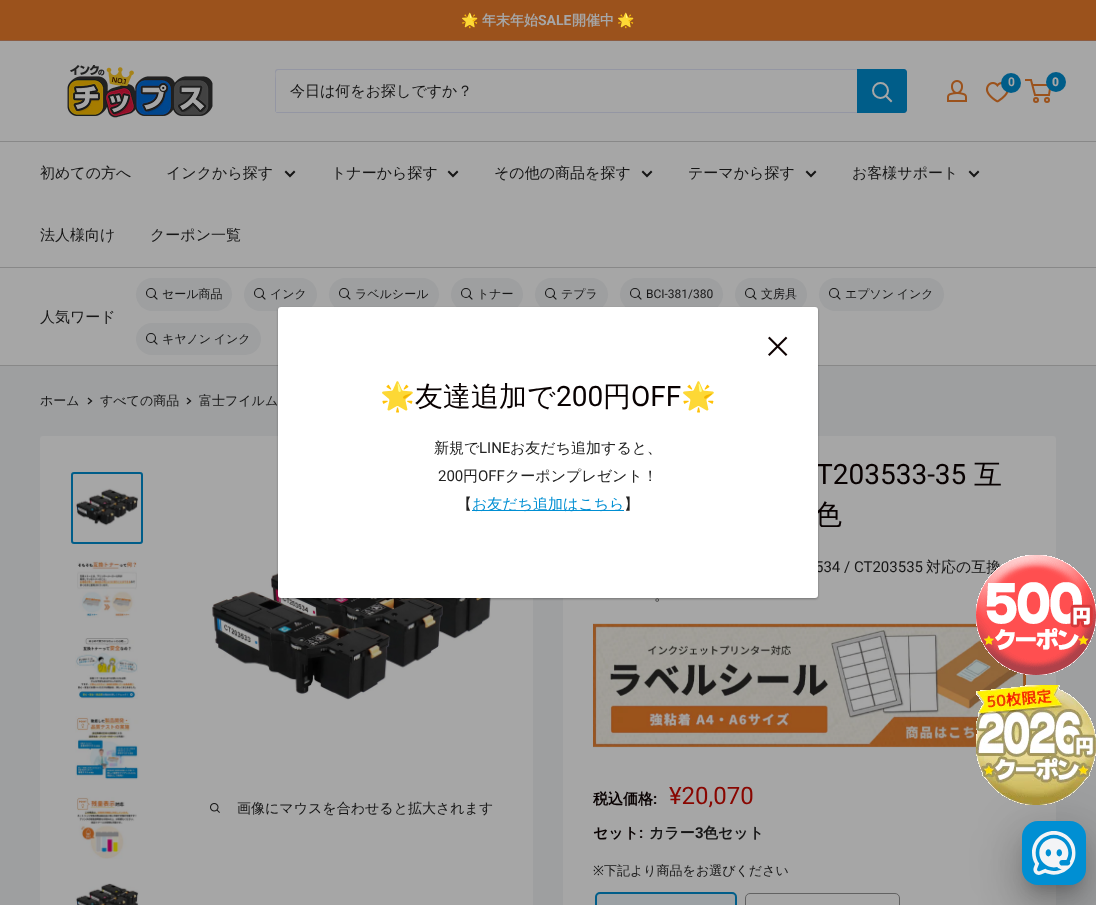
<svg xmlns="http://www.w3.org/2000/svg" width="1096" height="905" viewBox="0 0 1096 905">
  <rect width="100%" height="100%" fill="#9e9fa0"/>
  <path d="M0 0h1096v40H0z" fill="#9b521c"/>
  <path d="M0 40h1096v1H0z" fill="#8c5c42"/>
  <path d="M0 41h1096v100H0z" fill="#a6a6a6"/>
  <path d="M0 141h1096v1H0z" fill="#888"/>
  <image x="67" y="65" width="146" height="53" href="img/1.png"/>
  <image x="947" y="80" width="20" height="22" href="img/2.png"/>
  <image x="985" y="82" width="24" height="21" href="img/3.png"/>
  <circle cx="1011" cy="83" r="10" fill="#005d89"/>
  <circle cx="1036" cy="100" r="2" fill="none" stroke="#9b521c" stroke-width="2"/>
  <circle cx="1047" cy="100" r="2" fill="none" stroke="#9b521c" stroke-width="2"/>
  <path d="M1032.5 85H1050.5L1049 95H1035L1031 80H1025" fill="none" stroke="#9b521c" stroke-width="2"/>
  <circle cx="1056" cy="82" r="10" fill="#005d89"/>
  <path d="M276 112C276 113 277 113 278 113H904C906 113 907 112 907 110V72C907 71 907 70 906 70V103C906 105 908 112 903 112Z" fill="#9496a3"/>
  <path d="M279 70H906C906 69 905 69 904 69H278C276 69 275 70 275 72V110C275 111 275 112 276 112V79C276 77 274 70 279 70Z" fill="#9496a3"/>
  <path d="M857 69H904C905.5 69 907 70.5 907 72V110C907 111.5 905.5 113 904 113H857Z" fill="#005d89"/>
  <path d="M891 101L886 96" fill="none" stroke="#a6a6a6" stroke-width="2" stroke-linecap="square"/>
  <circle cx="880.5" cy="90.5" r="7.5" fill="none" stroke="#a6a6a6" stroke-width="2"/>
  <path d="M0 142h1096v125H0z" fill="#a6a6a6"/>
  <path d="M294 172L290 176L286 172" fill="none" stroke="#161616" stroke-width="2" stroke-linecap="square"/>
  <path d="M457 172L453 176L449 172" fill="none" stroke="#161616" stroke-width="2" stroke-linecap="square"/>
  <path d="M651 172L647 176L643 172" fill="none" stroke="#161616" stroke-width="2" stroke-linecap="square"/>
  <path d="M815 172L811 176L807 172" fill="none" stroke="#161616" stroke-width="2" stroke-linecap="square"/>
  <path d="M978 172L974 176L970 172" fill="none" stroke="#161616" stroke-width="2" stroke-linecap="square"/>
  <path d="M0 268h1096v97H0z" fill="#a6a6a6"/>
  <path d="M0 267h1096v1H0z" fill="#888"/>
  <path d="M0 365h1096v1H0z" fill="#888"/>
  <rect x="136" y="278" width="96" height="33" rx="16.5" fill="#9e9fa0"/>
  <path d="M157 299L154 296" fill="none" stroke="#161616" stroke-width="1.1" stroke-linecap="square"/>
  <circle cx="151" cy="293" r="4.5" fill="none" stroke="#161616" stroke-width="1.1"/>
  <rect x="244" y="278" width="73" height="33" rx="16.5" fill="#9e9fa0"/>
  <path d="M265 299L262 296" fill="none" stroke="#161616" stroke-width="1.1" stroke-linecap="square"/>
  <circle cx="259" cy="293" r="4.5" fill="none" stroke="#161616" stroke-width="1.1"/>
  <rect x="329" y="278" width="110" height="33" rx="16.5" fill="#9e9fa0"/>
  <path d="M350 299L347 296" fill="none" stroke="#161616" stroke-width="1.1" stroke-linecap="square"/>
  <circle cx="344" cy="293" r="4.5" fill="none" stroke="#161616" stroke-width="1.1"/>
  <rect x="451" y="278" width="72" height="33" rx="16.5" fill="#9e9fa0"/>
  <path d="M472 299L469 296" fill="none" stroke="#161616" stroke-width="1.1" stroke-linecap="square"/>
  <circle cx="466" cy="293" r="4.5" fill="none" stroke="#161616" stroke-width="1.1"/>
  <rect x="535" y="278" width="73" height="33" rx="16.5" fill="#9e9fa0"/>
  <path d="M556 299L553 296" fill="none" stroke="#161616" stroke-width="1.1" stroke-linecap="square"/>
  <circle cx="550" cy="293" r="4.5" fill="none" stroke="#161616" stroke-width="1.1"/>
  <rect x="620" y="278" width="103" height="33" rx="16.5" fill="#9e9fa0"/>
  <path d="M641 299L638 296" fill="none" stroke="#161616" stroke-width="1.1" stroke-linecap="square"/>
  <circle cx="635" cy="293" r="4.5" fill="none" stroke="#161616" stroke-width="1.1"/>
  <rect x="735" y="278" width="72" height="33" rx="16.5" fill="#9e9fa0"/>
  <path d="M756 299L753 296" fill="none" stroke="#161616" stroke-width="1.1" stroke-linecap="square"/>
  <circle cx="750" cy="293" r="4.5" fill="none" stroke="#161616" stroke-width="1.1"/>
  <rect x="819" y="278" width="125" height="33" rx="16.5" fill="#9e9fa0"/>
  <path d="M840 299L837 296" fill="none" stroke="#161616" stroke-width="1.1" stroke-linecap="square"/>
  <circle cx="834" cy="293" r="4.5" fill="none" stroke="#161616" stroke-width="1.1"/>
  <rect x="136" y="323" width="125" height="32" rx="16" fill="#9e9fa0"/>
  <path d="M157 344L154 341" fill="none" stroke="#161616" stroke-width="1.1" stroke-linecap="square"/>
  <circle cx="151" cy="338" r="4.5" fill="none" stroke="#161616" stroke-width="1.1"/>
  <rect x="40" y="436" width="493" height="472" rx="3" fill="#a6a6a6"/>
  <image x="212" y="536" width="281" height="164" href="img/11.png"/>
  <rect x="563" y="436" width="493" height="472" rx="3" fill="#a6a6a6"/>
  <rect x="278" y="308" width="540" height="291" rx="3" fill="#0000004d" filter="blur(1px)"/>
  <path d="M88.5 398.5L91.5 401L88.5 403.5" fill="none" stroke="#161616" stroke-width="1.3" stroke-linecap="square"/>
  <path d="M187.5 398.5L190.5 401L187.5 403.5" fill="none" stroke="#161616" stroke-width="1.3" stroke-linecap="square"/>
  <rect x="72" y="473" width="70" height="70" rx="2" fill="none" stroke="#005d89" stroke-width="2"/>
  <image x="75" y="488" width="64" height="38" href="img/5.png"/>
  <image x="77" y="560" width="60" height="58" href="img/6.png"/>
  <image x="75" y="638" width="63" height="61" href="img/7.png"/>
  <image x="75" y="716" width="64" height="64" href="img/8.png"/>
  <image x="77" y="797" width="60" height="62" href="img/9.png"/>
  <image x="75" y="883" width="64" height="22" href="img/10.png"/>
  <image x="210" y="803" width="10" height="10" href="img/12.png"/>
  <image x="593" y="623" width="433" height="125" href="img/13.png"/>
  <rect x="596" y="893" width="140" height="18" rx="4" fill="#9ca1a4" stroke="#005d89" stroke-width="2"/>
  <rect x="745.5" y="893.5" width="154" height="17" rx="4.5" fill="none" stroke="#626262"/>
  <image x="976" y="685" width="120" height="120" href="img/15.png"/>
  <rect x="1029" y="839" width="50" height="50" rx="9" fill="#00000033" filter="blur(7.5px)"/>
  <rect x="1019" y="842" width="70" height="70" rx="19" fill="#00000024" filter="blur(19px)"/>
  <rect x="1014" y="822" width="80" height="80" rx="24" fill="#0000001f" filter="blur(23px)"/>
  <rect x="1022" y="821" width="64" height="64" rx="16" fill="#008fd3"/>
  <image x="1032" y="831" width="44" height="44" href="img/16.png"/>
  <text x="461" y="25" font-family="Noto Color Emoji" font-size="14" font-weight="bold" fill="#a6a6a6">🌟</text>
  <text x="482" y="25" font-family="WenQuanYi Zen Hei" font-size="14" font-weight="bold" fill="#a6a6a6">年末年始</text>
  <text x="538" y="25" font-family="Roboto" font-size="14" font-weight="bold" fill="#a6a6a6">SALE</text>
  <text x="572" y="25" font-family="WenQuanYi Zen Hei" font-size="14" font-weight="bold" fill="#a6a6a6">開催中</text>
  <text x="617" y="25" font-family="Noto Color Emoji" font-size="14" font-weight="bold" fill="#a6a6a6">🌟</text>
  <text x="1008" y="86" font-family="Roboto" font-size="12" font-weight="bold" fill="#a6a6a6">0</text>
  <text x="1052" y="86" font-family="Roboto" font-size="12" font-weight="900" fill="#a6a6a6">0</text>
  <g font-family="WenQuanYi Zen Hei" font-size="15" font-weight="500" fill="#161616">
    <text x="290" y="96">今日は何をお探しですか？</text>
    <text x="40" y="178">初めての方へ</text>
    <text x="166" y="178">インクから探す</text>
    <text x="331" y="178">トナーから探す</text>
    <text x="494" y="178">その他の商品を探す</text>
    <text x="688" y="178">テーマから探す</text>
    <text x="852" y="178">お客様サポート</text>
    <text x="40" y="240">法人様向け</text>
    <text x="150" y="240">クーポン一覧</text>
    <text x="40" y="322">人気ワード</text>
  </g>
  <g font-family="WenQuanYi Zen Hei" font-size="12" font-weight="500" fill="#161616">
    <text x="162" y="298">セール商品</text>
    <text x="270" y="298">インク</text>
    <text x="355" y="298">ラベルシール</text>
    <text x="477" y="298">トナー</text>
    <text x="561" y="298">テプラ</text>
  </g>
  <text x="646" y="298" font-family="Roboto" font-size="12" fill="#161616">BCI-381/380</text>
  <g font-family="WenQuanYi Zen Hei" font-size="12" font-weight="500" fill="#161616">
    <text x="761" y="298">文房具</text>
    <text x="845" y="298" word-spacing="-1">エプソン インク</text>
    <text x="162" y="343" word-spacing="-1">キヤノン インク</text>
  </g>
  <g font-family="WenQuanYi Zen Hei" font-size="13" font-weight="500" fill="#161616">
    <text x="40" y="405">ホーム</text>
    <text x="100" y="405">すべての商品</text>
    <text x="199" y="405">富士フイルム</text>
  </g>
  <text x="237" y="813" font-family="WenQuanYi Zen Hei" font-size="14" font-weight="500" fill="#161616">画像にマウスを合わせると拡大されます</text>
  <text x="816" y="484" font-family="Roboto" font-size="28" fill="#080101">T203533-35</text>
  <g font-family="WenQuanYi Zen Hei" font-size="28" font-weight="500" fill="#080101">
    <text x="974" y="484">互</text>
    <text x="814" y="524">色</text>
  </g>
  <text x="815" y="572" font-family="Roboto" font-size="15" fill="#161616">534 / CT203535</text>
  <rect x="278" y="307" width="540" height="291" rx="3" fill="#fff"/>
  <image x="768" y="336" width="20" height="20" href="img/4.png"/>
  <text x="624" y="509" font-family="WenQuanYi Zen Hei" font-size="15" font-weight="500" fill="#222">】</text>
  <path d="M472 510h152v1H472z" fill="#008fd3"/>
  <text x="472" y="509" font-family="WenQuanYi Zen Hei" font-size="15" font-weight="500" fill="#008fd3">お友だち追加はこちら</text>
  <g font-family="WenQuanYi Zen Hei" font-size="15" font-weight="500" fill="#222">
    <text x="457" y="509">【</text>
    <text x="505" y="481">クーポンプレゼント！</text>
  </g>
  <text x="478" y="481" font-family="Roboto" font-size="15" fill="#222">OFF</text>
  <text x="463" y="481" font-family="WenQuanYi Zen Hei" font-size="15" font-weight="500" fill="#222">円</text>
  <text x="438" y="481" font-family="Roboto" font-size="15" fill="#222">200</text>
  <text x="510" y="453" font-family="WenQuanYi Zen Hei" font-size="15" font-weight="500" fill="#222">お友だち追加すると、</text>
  <text x="479" y="453" font-family="Roboto" font-size="15" fill="#222">LINE</text>
  <text x="434" y="453" font-family="WenQuanYi Zen Hei" font-size="15" font-weight="500" fill="#222">新規で</text>
  <text x="681" y="406" font-family="Noto Color Emoji" font-size="28" fill="#080101">🌟</text>
  <text x="631" y="406" font-family="Roboto" font-size="28" fill="#080101">OFF</text>
  <text x="603" y="406" font-family="WenQuanYi Zen Hei" font-size="28" font-weight="500" fill="#080101">円</text>
  <text x="556" y="406" font-family="Roboto" font-size="28" fill="#080101">200</text>
  <text x="415" y="406" font-family="WenQuanYi Zen Hei" font-size="28" font-weight="500" fill="#080101">友達追加で</text>
  <text x="380" y="406" font-family="Noto Color Emoji" font-size="28" fill="#080101">🌟</text>
  <g font-family="WenQuanYi Zen Hei" font-size="15" font-weight="500" fill="#161616">
    <text x="926" y="572">対応の互換</text>
    <text x="654" y="600">。</text>
  </g>
  <text x="593" y="804" font-family="WenQuanYi Zen Hei" font-size="15" font-weight="bold" fill="#080101">税込価格</text>
  <text x="653" y="804" font-family="Roboto" font-size="15" font-weight="bold" fill="#080101">:</text>
  <text x="669" y="804" font-family="Roboto" font-size="24" fill="#890600">¥20,070</text>
  <text x="593" y="838" font-family="WenQuanYi Zen Hei" font-size="15" font-weight="bold" fill="#080101">セット</text>
  <text x="639" y="838" font-family="Roboto" font-size="15" font-weight="bold" fill="#080101">:</text>
  <text x="649" y="838" font-family="WenQuanYi Zen Hei" font-size="15" font-weight="bold" fill="#161616">カラー</text>
  <text x="695" y="838" font-family="Roboto" font-size="15" font-weight="bold" fill="#161616">3</text>
  <text x="703" y="838" font-family="WenQuanYi Zen Hei" font-size="15" font-weight="bold" fill="#161616">色セット</text>
  <text x="593" y="875" font-family="Noto Sans" font-size="13" fill="#161616">※</text>
  <text x="604" y="875" font-family="WenQuanYi Zen Hei" font-size="13" font-weight="500" fill="#161616">下記より商品をお選びください</text>
  <image x="976" y="555" width="120" height="120" href="img/14.png"/>
</svg>
